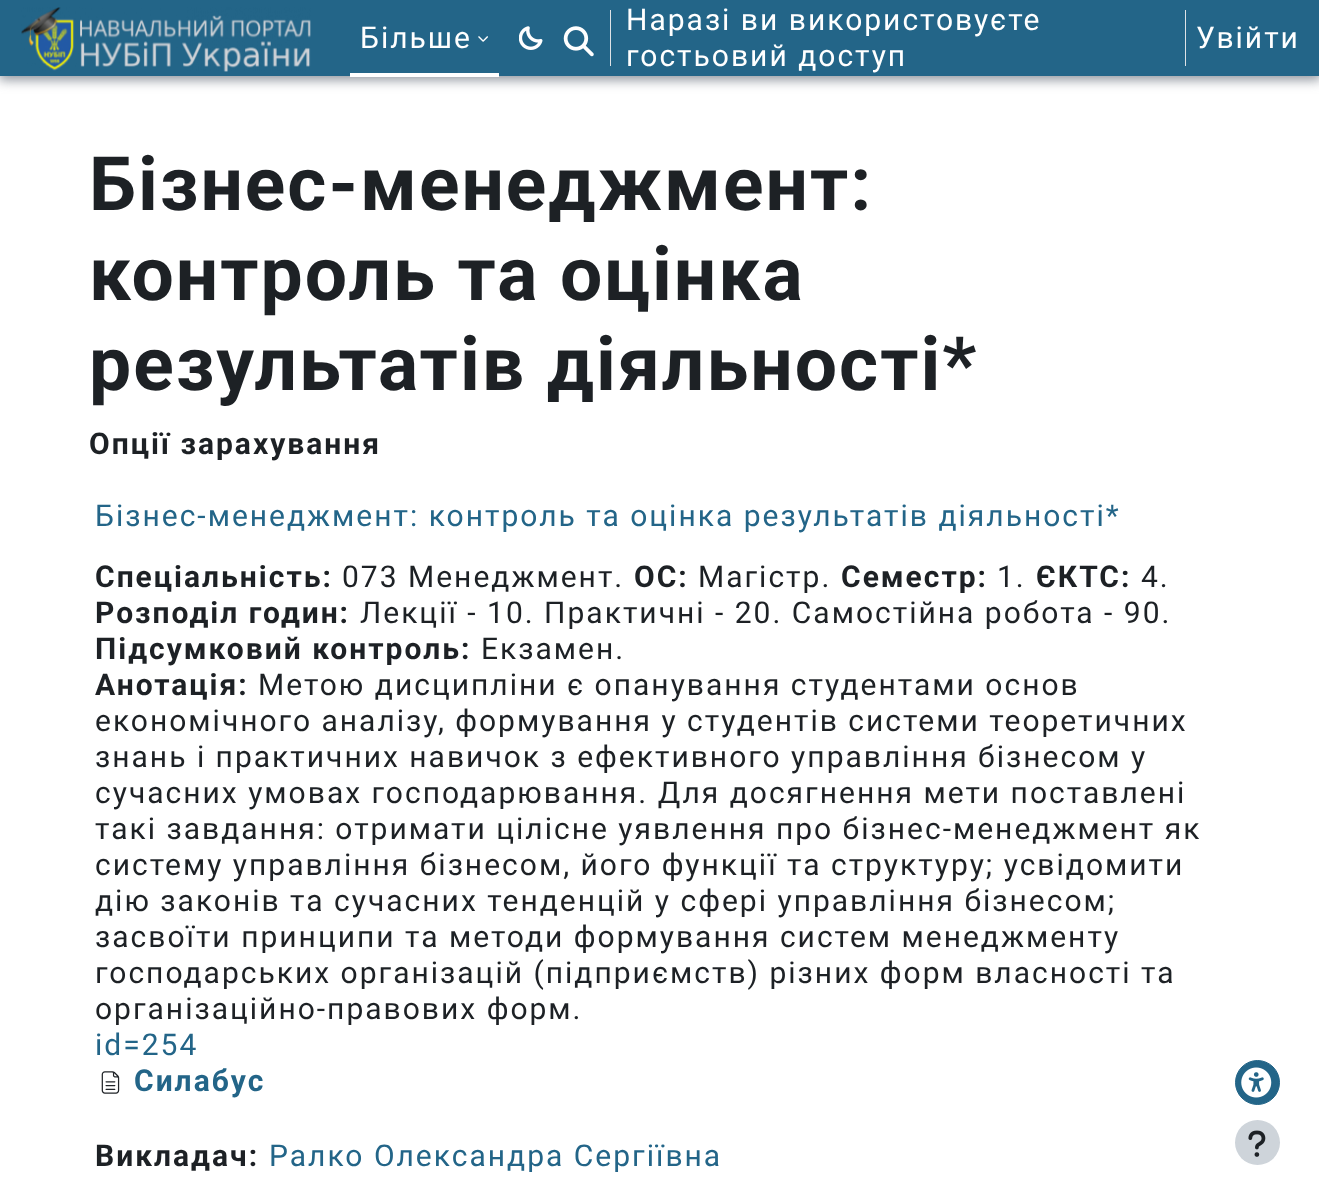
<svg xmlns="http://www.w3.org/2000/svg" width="1319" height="1204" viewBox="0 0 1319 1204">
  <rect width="100%" height="100%" fill="#fff"/>
  <path d="M-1 1h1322v79H-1z" fill="#8f959e" filter="blur(6px)"/>
  <path d="M0 0h1319v76H0z" fill="#236588"/>
  <image x="21" y="7" width="290" height="65" href="img/1.png"/>
  <path d="M350 73h149v4H350z" fill="#fff"/>
  <image x="478" y="36" width="10" height="6" href="img/2.png"/>
  <image x="519" y="26" width="24" height="24" href="img/3.png"/>
  <image x="563" y="26" width="31" height="31" href="img/4.png"/>
  <path d="M610 10h1v56H610z" fill="#dee2e6"/>
  <path d="M1185 10h1v56H1185z" fill="#dee2e6"/>
  <image x="101" y="1071" width="19" height="23" href="img/5.png"/>
  <circle cx="1257.5" cy="1082.5" r="22" fill="#236588" stroke="#236588"/>
  <image x="1241" y="1067" width="31" height="31" href="img/6.png"/>
  <circle cx="1257.5" cy="1142.5" r="22.5" fill="#ced4da"/>
  <image x="1248" y="1130" width="18" height="27" href="img/7.png"/>
  <g font-family="Roboto" font-size="30" letter-spacing="2" fill="#fff">
    <text x="360" y="48">Більше</text>
    <text x="626" y="30">Наразі ви використовуєте</text>
    <text x="1196" y="48">Увійти</text>
    <text x="626" y="66">гостьовий доступ</text>
  </g>
  <g font-family="Roboto" font-size="75" font-weight="bold" letter-spacing="2" fill="#1d2125">
    <text x="89" y="210">Бізнес-менеджмент:</text>
    <text x="89" y="300">контроль та оцінка</text>
    <text x="89" y="390">результатів діяльності*</text>
  </g>
  <text x="89" y="454" font-family="Roboto" font-size="30" font-weight="bold" letter-spacing="2" fill="#1d2125">Опції зарахування</text>
  <text x="95" y="526" font-family="Roboto" font-size="30" letter-spacing="2" fill="#236588">Бізнес-менеджмент: контроль та оцінка результатів діяльності*</text>
  <text x="95" y="587" font-family="Roboto" font-size="30" font-weight="bold" letter-spacing="2" fill="#1d2125">Спеціальність:</text>
  <text x="342" y="587" font-family="Roboto" font-size="30" letter-spacing="2" fill="#1d2125">073 Менеджмент.</text>
  <text x="634" y="587" font-family="Roboto" font-size="30" font-weight="bold" letter-spacing="2" fill="#1d2125">ОС:</text>
  <text x="698" y="587" font-family="Roboto" font-size="30" letter-spacing="2" fill="#1d2125">Магістр.</text>
  <text x="841" y="587" font-family="Roboto" font-size="30" font-weight="bold" letter-spacing="2" fill="#1d2125">Семестр:</text>
  <text x="997" y="587" font-family="Roboto" font-size="30" letter-spacing="2" fill="#1d2125">1.</text>
  <text x="1036" y="587" font-family="Roboto" font-size="30" font-weight="bold" letter-spacing="2" fill="#1d2125">ЄКТС:</text>
  <text x="1141" y="587" font-family="Roboto" font-size="30" letter-spacing="2" fill="#1d2125">4.</text>
  <text x="95" y="623" font-family="Roboto" font-size="30" font-weight="bold" letter-spacing="2" fill="#1d2125">Розподіл годин:</text>
  <text x="360" y="623" font-family="Roboto" font-size="30" letter-spacing="2" fill="#1d2125">Лекції - 10. Практичні - 20. Самостійна робота - 90.</text>
  <text x="95" y="659" font-family="Roboto" font-size="30" font-weight="bold" letter-spacing="2" fill="#1d2125">Підсумковий контроль:</text>
  <text x="481" y="659" font-family="Roboto" font-size="30" letter-spacing="2" fill="#1d2125">Екзамен.</text>
  <text x="95" y="695" font-family="Roboto" font-size="30" font-weight="bold" letter-spacing="2" fill="#1d2125">Анотація:</text>
  <g font-family="Roboto" font-size="30" letter-spacing="2" fill="#1d2125">
    <text x="258" y="695">Метою дисципліни є опанування студентами основ</text>
    <text x="95" y="731">економічного аналізу, формування у студентів системи теоретичних</text>
    <text x="95" y="767">знань і практичних навичок з ефективного управління бізнесом у</text>
    <text x="95" y="803">сучасних умовах господарювання. Для досягнення мети поставлені</text>
    <text x="95" y="839">такі завдання: отримати цілісне уявлення про бізнес-менеджмент як</text>
    <text x="95" y="875">систему управління бізнесом, його функції та структуру; усвідомити</text>
    <text x="95" y="911">дію законів та сучасних тенденцій у сфері управління бізнесом;</text>
    <text x="95" y="947">засвоїти принципи та методи формування систем менеджменту</text>
    <text x="95" y="983">господарських організацій (підприємств) різних форм власності та</text>
    <text x="95" y="1019">організаційно-правових форм.</text>
  </g>
  <text x="95" y="1055" font-family="Roboto" font-size="30" letter-spacing="2" fill="#236588">id=254</text>
  <text x="134" y="1091" font-family="Roboto" font-size="30" font-weight="bold" letter-spacing="2" fill="#236588">Силабус</text>
  <text x="95" y="1166" font-family="Roboto" font-size="30" font-weight="bold" letter-spacing="2" fill="#1d2125">Викладач:</text>
  <text x="269" y="1166" font-family="Roboto" font-size="30" letter-spacing="2" fill="#236588">Ралко Олександра Сергіївна</text>
</svg>
